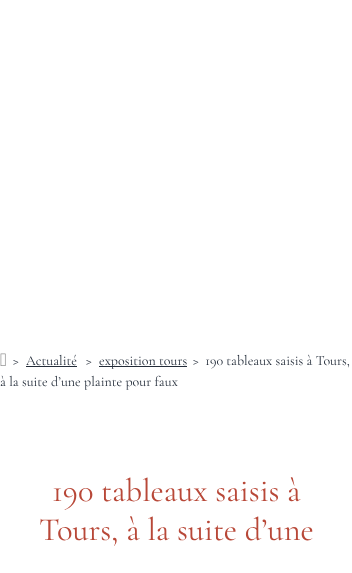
<svg xmlns="http://www.w3.org/2000/svg" width="352" height="573" viewBox="0 0 352 573">
  <rect width="100%" height="100%" fill="#fff"/>
  <image x="0" y="353" width="6" height="13" href="img/1.png"/>
  <path d="M26 366h51v1H26z" fill="#232c39"/>
  <path d="M99 366h88v1H99z" fill="#232c39"/>
  <g font-family="Cormorant Garamond" font-size="14" fill="#232c39">
    <text x="13" y="365">&gt;</text>
    <text x="26" y="365">Actualité</text>
    <text x="86" y="365">&gt;</text>
    <text x="99" y="365">exposition tours</text>
    <text x="193" y="365" xml:space="preserve">&gt;  190 tableaux saisis à Tours,</text>
    <text x="0" y="386">à la suite d’une plainte pour faux</text>
  </g>
  <g font-family="Cormorant Garamond" font-size="32.5" fill="#b84838">
    <text x="52" y="501">190 tableaux saisis à</text>
    <text x="39" y="540">Tours, à la suite d’une</text>
  </g>
</svg>
